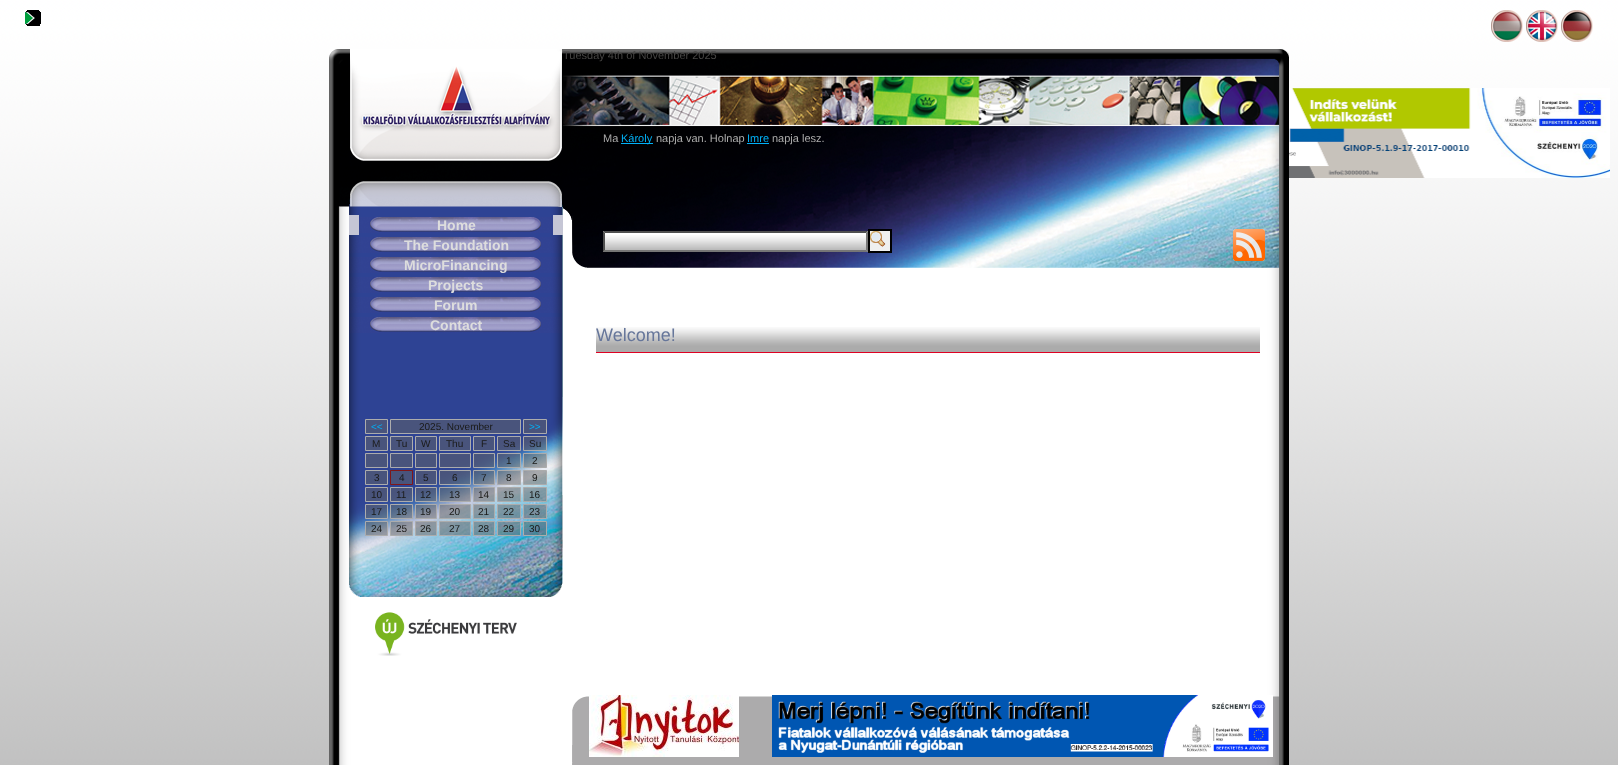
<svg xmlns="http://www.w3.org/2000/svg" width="1618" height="765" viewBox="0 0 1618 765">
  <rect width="100%" height="100%" fill="#fff"/>
  <image x="0" y="0" width="1618" height="765" href="img/1.png"/>
  <image x="25" y="10" width="16" height="16" href="img/2.png"/>
  <image x="1491" y="10" width="32" height="32" href="img/3.png"/>
  <image x="1526" y="10" width="32" height="32" href="img/4.png"/>
  <image x="1561" y="10" width="32" height="32" href="img/5.png"/>
  <image x="329" y="207" width="960" height="558" href="img/6.png"/>
  <image x="563" y="49" width="726" height="219" href="img/7.png"/>
  <path d="M621 143h32v1H621z" fill="#00b1f7"/>
  <path d="M747 143h22v1H747z" fill="#00b1f7"/>
  <path d="M603 231h265v4H603z" fill="#fff"/>
  <image x="603" y="235" width="265" height="17" href="img/8.png"/>
  <path d="M603 231H868L866 233H605Z" fill="#4f4f4f"/>
  <path d="M868 231V252L866 250V233Z" fill="#767676"/>
  <path d="M868 252H603L605 250H866Z" fill="#767676"/>
  <path d="M603 252V231L605 233V250Z" fill="#4f4f4f"/>
  <path d="M870 231h20v20H870z" fill="#efefef"/>
  <image x="870" y="231" width="16" height="16" href="img/9.png"/>
  <path d="M869 230h22v22H869z" fill="none" stroke="#000" stroke-width="2"/>
  <image x="1233" y="229" width="32" height="32" href="img/10.png"/>
  <image x="329" y="49" width="234" height="158" href="img/11.png"/>
  <image x="349" y="207" width="214" height="190" href="img/12.png"/>
  <path d="M553 215h10v20H553z" fill="#c5c6d5"/>
  <path d="M349 215h10v20H349z" fill="#c5c6d5"/>
  <image x="359" y="217" width="194" height="16" href="img/13.png"/>
  <image x="349" y="237" width="214" height="16" href="img/14.png"/>
  <image x="349" y="257" width="214" height="16" href="img/14.png"/>
  <image x="349" y="277" width="214" height="16" href="img/14.png"/>
  <image x="349" y="297" width="214" height="16" href="img/14.png"/>
  <image x="349" y="317" width="214" height="16" href="img/14.png"/>
  <image x="349" y="397" width="214" height="200" href="img/15.png"/>
  <path d="M365.5 419.5h22v14H365.5z" fill="#49547c" stroke="#acacac"/>
  <path d="M390.5 419.5h130v14H390.5z" fill="#49547c" stroke="#acacac"/>
  <path d="M523.5 419.5h23v14H523.5z" fill="#64646480" stroke="#acacac"/>
  <path d="M365.5 436.5h22v14H365.5z" fill="#49547c" stroke="#acacac"/>
  <path d="M390.5 436.5h22v14H390.5z" fill="#49547c" stroke="#acacac"/>
  <path d="M415.5 436.5h21v14H415.5z" fill="#49547c" stroke="#acacac"/>
  <path d="M439.5 436.5h31v14H439.5z" fill="#49547c" stroke="#acacac"/>
  <path d="M473.5 436.5h21v14H473.5z" fill="#49547c" stroke="#acacac"/>
  <path d="M497.5 436.5h23v14H497.5z" fill="#64646480" stroke="#acacac"/>
  <path d="M523.5 436.5h23v14H523.5z" fill="#64646480" stroke="#acacac"/>
  <path d="M365.5 453.5h22v14H365.5z" fill="#49547c" stroke="#acacac"/>
  <path d="M390.5 453.5h22v14H390.5z" fill="#49547c" stroke="#acacac"/>
  <path d="M415.5 453.5h21v14H415.5z" fill="#49547c" stroke="#acacac"/>
  <path d="M439.5 453.5h31v14H439.5z" fill="#64646480" stroke="#acacac"/>
  <path d="M473.5 453.5h21v14H473.5z" fill="#64646480" stroke="#acacac"/>
  <path d="M497.5 453.5h23v14H497.5z" fill="#64646480" stroke="#acacac"/>
  <path d="M523.5 453.5h23v14H523.5z" fill="#64646480" stroke="#acacac"/>
  <path d="M365.5 470.5h22v14H365.5z" fill="#49547c" stroke="#acacac"/>
  <path d="M390.5 470.5h22v14H390.5z" fill="#49547c" stroke="#7f1719"/>
  <path d="M415.5 470.5h21v14H415.5z" fill="#64646480" stroke="#acacac"/>
  <path d="M439.5 470.5h31v14H439.5z" fill="#64646480" stroke="#acacac"/>
  <path d="M473.5 470.5h21v14H473.5z" fill="#64646480" stroke="#acacac"/>
  <path d="M497.5 470.5h23v14H497.5z" fill="#64646480" stroke="#acacac"/>
  <path d="M523.5 470.5h23v14H523.5z" fill="#64646480" stroke="#acacac"/>
  <path d="M365.5 487.5h22v14H365.5z" fill="#64646480" stroke="#acacac"/>
  <path d="M390.5 487.5h22v14H390.5z" fill="#64646480" stroke="#acacac"/>
  <path d="M415.5 487.5h21v14H415.5z" fill="#64646480" stroke="#acacac"/>
  <path d="M439.5 487.5h31v14H439.5z" fill="#64646480" stroke="#acacac"/>
  <path d="M473.5 487.5h21v14H473.5z" fill="#64646480" stroke="#acacac"/>
  <path d="M497.5 487.5h23v14H497.5z" fill="#64646480" stroke="#acacac"/>
  <path d="M523.5 487.5h23v14H523.5z" fill="#64646480" stroke="#acacac"/>
  <path d="M365.5 504.5h22v14H365.5z" fill="#64646480" stroke="#acacac"/>
  <path d="M390.5 504.5h22v14H390.5z" fill="#64646480" stroke="#acacac"/>
  <path d="M415.5 504.5h21v14H415.5z" fill="#64646480" stroke="#acacac"/>
  <path d="M439.5 504.5h31v14H439.5z" fill="#64646480" stroke="#acacac"/>
  <path d="M473.5 504.5h21v14H473.5z" fill="#64646480" stroke="#acacac"/>
  <path d="M497.5 504.5h23v14H497.5z" fill="#64646480" stroke="#acacac"/>
  <path d="M523.5 504.5h23v14H523.5z" fill="#64646480" stroke="#acacac"/>
  <path d="M365.5 521.5h22v14H365.5z" fill="#64646480" stroke="#acacac"/>
  <path d="M390.5 521.5h22v14H390.5z" fill="#64646480" stroke="#acacac"/>
  <path d="M415.5 521.5h21v14H415.5z" fill="#64646480" stroke="#acacac"/>
  <path d="M439.5 521.5h31v14H439.5z" fill="#64646480" stroke="#acacac"/>
  <path d="M473.5 521.5h21v14H473.5z" fill="#64646480" stroke="#acacac"/>
  <path d="M497.5 521.5h23v14H497.5z" fill="#64646480" stroke="#acacac"/>
  <path d="M523.5 521.5h23v14H523.5z" fill="#64646480" stroke="#acacac"/>
  <image x="375" y="612" width="142" height="44" href="img/16.png"/>
  <image x="596" y="327" width="664" height="25" href="img/17.png"/>
  <path d="M596 352h664v1H596z" fill="#df0022"/>
  <image x="339" y="695" width="941" height="70" href="img/18.png"/>
  <image x="589" y="695" width="150" height="62" href="img/19.png"/>
  <image x="772" y="695" width="501" height="62" href="img/20.png"/>
  <image x="1289" y="88" width="321" height="90" href="img/21.png"/>
  <text x="563" y="59" font-family="Liberation Sans" font-size="11" fill="#464544">Tuesday 4th of November 2025</text>
  <text x="603" y="142" font-family="Liberation Sans" font-size="11" fill="#acacac">Ma</text>
  <text x="621" y="142" font-family="Liberation Sans" font-size="11" fill="#00b1f7">Károly</text>
  <text x="656" y="142" font-family="Liberation Sans" font-size="11" fill="#acacac">napja van. Holnap</text>
  <text x="747" y="142" font-family="Liberation Sans" font-size="11" fill="#00b1f7">Imre</text>
  <text x="772" y="142" font-family="Liberation Sans" font-size="11" fill="#acacac">napja lesz.</text>
  <g font-family="Liberation Sans" font-size="14" font-weight="bold" fill="#ddd">
    <text x="437" y="230">Home</text>
    <text x="404" y="250">The Foundation</text>
    <text x="404" y="270">MicroFinancing</text>
    <text x="428" y="290">Projects</text>
    <text x="434" y="310">Forum</text>
    <text x="430" y="330">Contact</text>
  </g>
  <text x="371" y="430" font-family="Liberation Sans" font-size="10" fill="#00b1f7">&lt;&lt;</text>
  <text x="419" y="430" font-family="Liberation Sans" font-size="10" fill="#1a1a18">2025. November</text>
  <text x="529" y="430" font-family="Liberation Sans" font-size="10" fill="#00b1f7">&gt;&gt;</text>
  <g font-family="Liberation Sans" font-size="10" fill="#1a1a18">
    <text x="372" y="447">M</text>
    <text x="396" y="447">Tu</text>
    <text x="421" y="447">W</text>
    <text x="446" y="447">Thu</text>
    <text x="481" y="447">F</text>
    <text x="503" y="447">Sa</text>
    <text x="529" y="447">Su</text>
    <text x="506" y="464">1</text>
    <text x="532" y="464">2</text>
    <text x="374" y="481">3</text>
    <text x="399" y="481">4</text>
    <text x="423" y="481">5</text>
    <text x="452" y="481">6</text>
    <text x="481" y="481">7</text>
    <text x="506" y="481">8</text>
    <text x="532" y="481">9</text>
    <text x="371" y="498">10</text>
    <text x="396" y="498">11</text>
    <text x="420" y="498">12</text>
    <text x="449" y="498">13</text>
    <text x="478" y="498">14</text>
    <text x="503" y="498">15</text>
    <text x="529" y="498">16</text>
    <text x="371" y="515">17</text>
    <text x="396" y="515">18</text>
    <text x="420" y="515">19</text>
    <text x="449" y="515">20</text>
    <text x="478" y="515">21</text>
    <text x="503" y="515">22</text>
    <text x="529" y="515">23</text>
    <text x="371" y="532">24</text>
    <text x="396" y="532">25</text>
    <text x="420" y="532">26</text>
    <text x="449" y="532">27</text>
    <text x="478" y="532">28</text>
    <text x="503" y="532">29</text>
    <text x="529" y="532">30</text>
  </g>
  <text x="596" y="341" font-family="Liberation Sans" font-size="18" fill="#66769a">Welcome!</text>
</svg>
